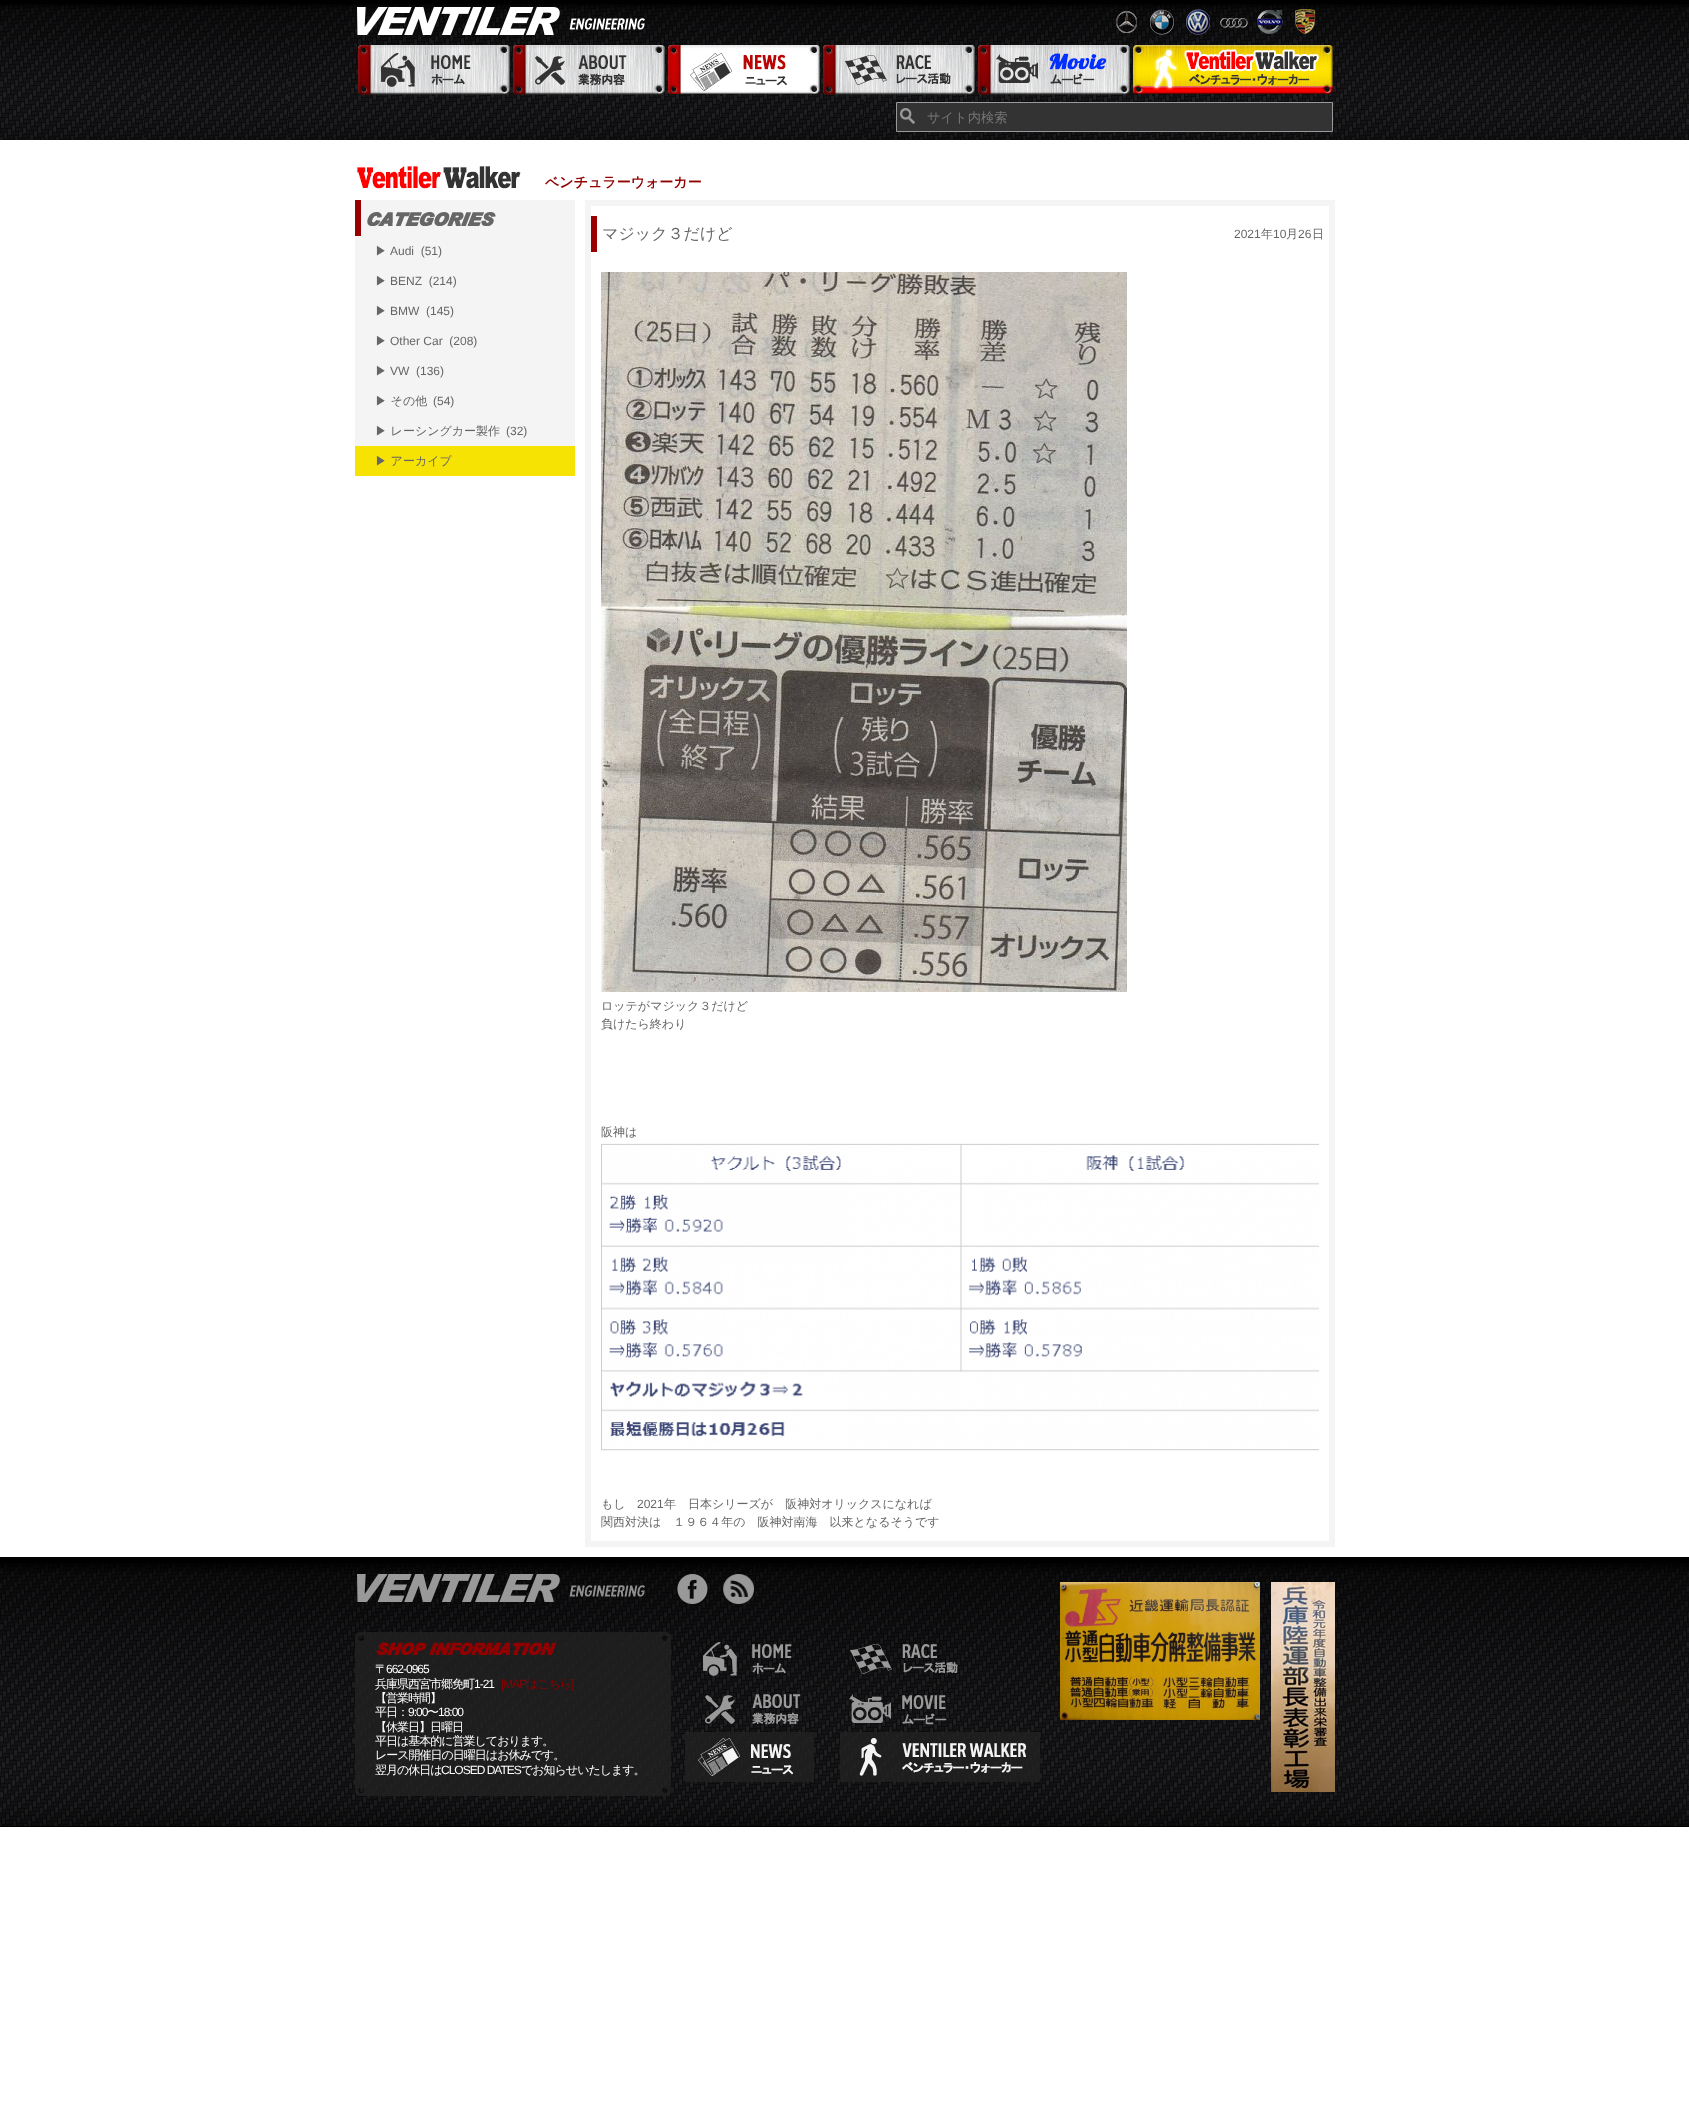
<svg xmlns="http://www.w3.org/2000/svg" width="1689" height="2115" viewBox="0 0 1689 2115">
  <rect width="100%" height="100%" fill="#fff"/>
  <path d="M0 0h1689v4H0z" fill="#000"/>
  <image x="0" y="4" width="1689" height="136" href="img/1.png"/>
  <image x="357" y="7" width="288" height="28" href="img/2.png"/>
  <image x="1116" y="9" width="200" height="26" href="img/3.png"/>
  <image x="358" y="45" width="152" height="50" href="img/4.png"/>
  <image x="513" y="45" width="152" height="50" href="img/5.png"/>
  <image x="668" y="45" width="152" height="49" href="img/6.png"/>
  <image x="823" y="45" width="152" height="50" href="img/7.png"/>
  <image x="978" y="45" width="152" height="50" href="img/8.png"/>
  <image x="1133" y="45" width="200" height="49" href="img/9.png"/>
  <path d="M897 103h435v28H897z" fill="#333"/>
  <image x="900" y="108" width="15" height="16" href="img/10.png"/>
  <path d="M896.5 102.5h436v29H896.5z" fill="none" stroke="#999"/>
  <image x="357" y="166" width="164" height="23" href="img/11.png"/>
  <path d="M355 200h220v246H355z" fill="#f4f4f4"/>
  <image x="355" y="200" width="141" height="36" href="img/12.png"/>
  <path d="M355 446h220v30H355z" fill="#f6e203"/>
  <path d="M588 203h744v1341H588z" fill="none" stroke="#f4f4f4" stroke-width="6"/>
  <path d="M591 216h6v36H591z" fill="#900"/>
  <image x="601" y="272" width="526" height="720" href="img/13.png"/>
  <image x="601" y="1143" width="718" height="308" href="img/14.png"/>
  <path d="M0 1557h1689v270H0z" fill="#000"/>
  <image x="0" y="1563" width="1689" height="263" href="img/15.png"/>
  <image x="357" y="1574" width="288" height="28" href="img/16.png"/>
  <image x="677" y="1574" width="31" height="30" href="img/17.png"/>
  <image x="723" y="1574" width="32" height="30" href="img/18.png"/>
  <image x="1060" y="1582" width="200" height="138" href="img/19.png"/>
  <image x="1271" y="1582" width="64" height="210" href="img/20.png"/>
  <image x="355" y="1632" width="316" height="164" href="img/21.png"/>
  <image x="376" y="1642" width="181" height="13" href="img/22.png"/>
  <image x="703" y="1642" width="89" height="34" href="img/23.png"/>
  <image x="850" y="1644" width="108" height="30" href="img/24.png"/>
  <image x="705" y="1694" width="96" height="31" href="img/25.png"/>
  <image x="849" y="1694" width="98" height="31" href="img/26.png"/>
  <image x="685" y="1732" width="129" height="50" href="img/27.png"/>
  <image x="840" y="1732" width="200" height="50" href="img/28.png"/>
  <text x="927" y="122" font-family="WenQuanYi Zen Hei" font-size="13.25" font-weight="500" fill="#757575">サイト内検索</text>
  <text x="545" y="187" font-family="WenQuanYi Zen Hei" font-size="14" font-weight="bold" fill="#900000">ベンチュラーウォーカー</text>
  <text x="375" y="255" font-family="WenQuanYi Zen Hei" font-size="12" font-weight="500" fill="#666">▶</text>
  <text x="390" y="255" font-family="Liberation Sans" font-size="12" fill="#666" xml:space="preserve">Audi  (51)</text>
  <text x="375" y="285" font-family="WenQuanYi Zen Hei" font-size="12" font-weight="500" fill="#666">▶</text>
  <text x="390" y="285" font-family="Liberation Sans" font-size="12" fill="#666" xml:space="preserve">BENZ  (214)</text>
  <text x="375" y="315" font-family="WenQuanYi Zen Hei" font-size="12" font-weight="500" fill="#666">▶</text>
  <text x="390" y="315" font-family="Liberation Sans" font-size="12" fill="#666" xml:space="preserve">BMW  (145)</text>
  <text x="375" y="345" font-family="WenQuanYi Zen Hei" font-size="12" font-weight="500" fill="#666">▶</text>
  <text x="390" y="345" font-family="Liberation Sans" font-size="12" fill="#666" xml:space="preserve">Other Car  (208)</text>
  <text x="375" y="375" font-family="WenQuanYi Zen Hei" font-size="12" font-weight="500" fill="#666">▶</text>
  <text x="390" y="375" font-family="Liberation Sans" font-size="12" fill="#666" xml:space="preserve">VW  (136)</text>
  <text x="375" y="405" font-family="WenQuanYi Zen Hei" font-size="12" font-weight="500" fill="#666">▶ その他</text>
  <text x="433" y="405" font-family="Liberation Sans" font-size="12" fill="#666">(54)</text>
  <text x="375" y="435" font-family="WenQuanYi Zen Hei" font-size="12" font-weight="500" fill="#666">▶ レーシングカー製作</text>
  <text x="506" y="435" font-family="Liberation Sans" font-size="12" fill="#666">(32)</text>
  <text x="375" y="465" font-family="WenQuanYi Zen Hei" font-size="12" font-weight="500" fill="#666">▶ アーカイブ</text>
  <text x="602" y="239" font-family="WenQuanYi Zen Hei" font-size="16" font-weight="500" fill="#666">マジック３だけど</text>
  <text x="1234" y="238" font-family="Liberation Sans" font-size="12" fill="#666">2021</text>
  <text x="1261" y="238" font-family="WenQuanYi Zen Hei" font-size="12" font-weight="500" fill="#666">年</text>
  <text x="1273" y="238" font-family="Liberation Sans" font-size="12" fill="#666">10</text>
  <text x="1286" y="238" font-family="WenQuanYi Zen Hei" font-size="12" font-weight="500" fill="#666">月</text>
  <text x="1298" y="238" font-family="Liberation Sans" font-size="12" fill="#666">26</text>
  <g font-family="WenQuanYi Zen Hei" font-size="12" font-weight="500" fill="#666">
    <text x="1312" y="238">日</text>
    <text x="601" y="1010">ロッテがマジック３だけど</text>
    <text x="601" y="1028">負けたら終わり</text>
    <text x="601" y="1136">阪神は</text>
    <text x="601" y="1508">もし</text>
  </g>
  <text x="637" y="1508" font-family="Liberation Sans" font-size="12" fill="#666">2021</text>
  <g font-family="WenQuanYi Zen Hei" font-size="12" font-weight="500" fill="#666">
    <text x="664" y="1508">年　日本シリーズが　阪神対オリックスになれば</text>
    <text x="601" y="1526">関西対決は　１９６４年の　阪神対南海　以来となるそうです</text>
  </g>
  <text x="375" y="1673" font-family="WenQuanYi Zen Hei" font-size="12" font-weight="500" letter-spacing="-1" fill="#fff">〒</text>
  <text x="386" y="1673" font-family="Liberation Sans" font-size="12" letter-spacing="-1" fill="#fff">662-0965</text>
  <text x="375" y="1688" font-family="WenQuanYi Zen Hei" font-size="12" font-weight="500" letter-spacing="-1" fill="#fff">兵庫県西宮市郷免町</text>
  <text x="474" y="1688" font-family="Liberation Sans" font-size="12" letter-spacing="-1" fill="#fff">1-21</text>
  <text x="501" y="1688" font-family="Liberation Sans" font-size="12" letter-spacing="-1" fill="#900000">[MAP</text>
  <text x="526" y="1688" font-family="WenQuanYi Zen Hei" font-size="12" font-weight="500" letter-spacing="-1" fill="#900000">はこちら</text>
  <text x="571" y="1688" font-family="Liberation Sans" font-size="12" letter-spacing="-1" fill="#900000">]</text>
  <g font-family="WenQuanYi Zen Hei" font-size="12" font-weight="500" letter-spacing="-1" fill="#fff">
    <text x="375" y="1702">【営業時間】</text>
    <text x="375" y="1716">平日：</text>
  </g>
  <text x="408" y="1716" font-family="Liberation Sans" font-size="12" letter-spacing="-1" fill="#fff">9:00</text>
  <text x="427" y="1716" font-family="WenQuanYi Zen Hei" font-size="12" font-weight="500" letter-spacing="-1" fill="#fff">〜</text>
  <text x="438" y="1716" font-family="Liberation Sans" font-size="12" letter-spacing="-1" fill="#fff">18:00</text>
  <g font-family="WenQuanYi Zen Hei" font-size="12" font-weight="500" letter-spacing="-1" fill="#fff">
    <text x="375" y="1731">【休業日】日曜日</text>
    <text x="375" y="1745">平日は基本的に営業しております。</text>
    <text x="375" y="1759">レース開催日の日曜日はお休みです。</text>
    <text x="375" y="1774">翌月の休日は</text>
  </g>
  <text x="441" y="1774" font-family="Liberation Sans" font-size="12" letter-spacing="-1" fill="#fff">CLOSED DATES</text>
  <text x="521" y="1774" font-family="WenQuanYi Zen Hei" font-size="12" font-weight="500" letter-spacing="-1" fill="#fff">でお知らせいたします。</text>
</svg>
